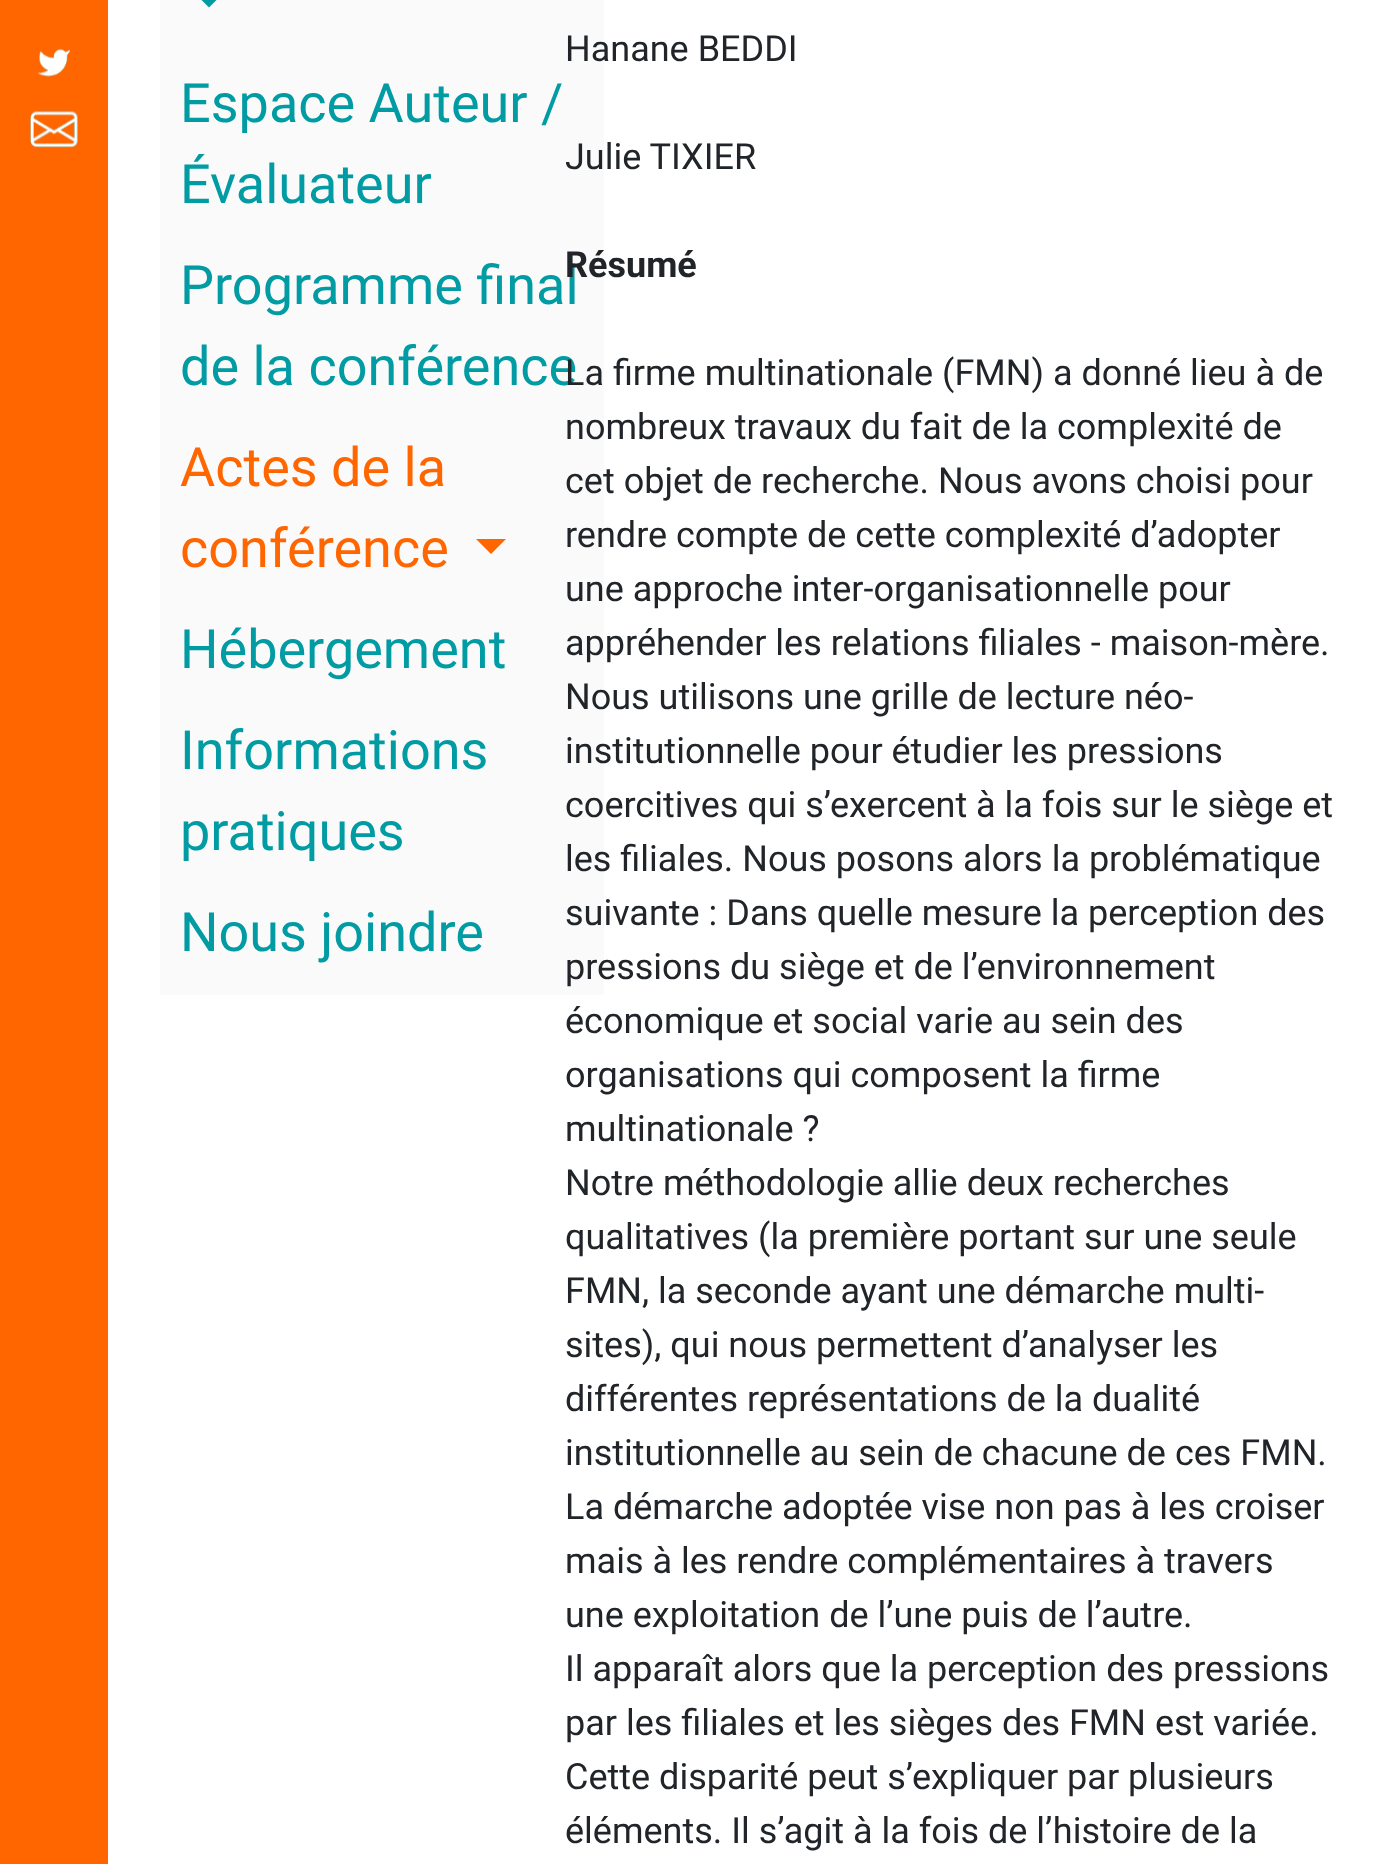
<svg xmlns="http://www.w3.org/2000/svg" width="1388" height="1864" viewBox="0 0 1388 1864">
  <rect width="100%" height="100%" fill="#fff"/>
  <path d="M0 0h108v1864H0z" fill="#f60"/>
  <image x="37" y="48" width="34" height="29" href="img/1.png"/>
  <image x="30" y="110" width="48" height="38" href="img/2.png"/>
  <path d="M160 0h444v995H160z" fill="#fafafa"/>
  <path d="M194-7.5H224L209 7.5Z" fill="#009ba3"/>
  <path d="M476 539H506L491 554Z" fill="#f60"/>
  <g font-family="Roboto" font-size="54" fill="#009ba3">
    <text x="180" y="122">Espace Auteur /</text>
    <text x="180" y="203">Évaluateur</text>
    <text x="180" y="304">Programme final</text>
    <text x="180" y="385">de la conférence</text>
  </g>
  <g font-family="Roboto" font-size="54" fill="#f60">
    <text x="180" y="486">Actes de la</text>
    <text x="180" y="567">conférence</text>
  </g>
  <g font-family="Roboto" font-size="54" fill="#009ba3">
    <text x="180" y="668">Hébergement</text>
    <text x="180" y="769">Informations</text>
    <text x="180" y="850">pratiques</text>
    <text x="180" y="951">Nous joindre</text>
  </g>
  <g font-family="Roboto" font-size="36" fill="#212529">
    <text x="565" y="61">Hanane BEDDI</text>
    <text x="565" y="169">Julie TIXIER</text>
  </g>
  <text x="565" y="277" font-family="Roboto" font-size="36" font-weight="bold" fill="#212529">Résumé</text>
  <g font-family="Roboto" font-size="36" fill="#212529">
    <text x="565" y="385">La firme multinationale (FMN) a donné lieu à de</text>
    <text x="565" y="439">nombreux travaux du fait de la complexité de</text>
    <text x="565" y="493">cet objet de recherche. Nous avons choisi pour</text>
    <text x="565" y="547">rendre compte de cette complexité d’adopter</text>
    <text x="565" y="601">une approche inter-organisationnelle pour</text>
    <text x="565" y="655">appréhender les relations filiales - maison-mère.</text>
    <text x="565" y="709">Nous utilisons une grille de lecture néo-</text>
    <text x="565" y="763">institutionnelle pour étudier les pressions</text>
    <text x="565" y="817">coercitives qui s’exercent à la fois sur le siège et</text>
    <text x="565" y="871">les filiales. Nous posons alors la problématique</text>
    <text x="565" y="925">suivante : Dans quelle mesure la perception des</text>
    <text x="565" y="979">pressions du siège et de l’environnement</text>
    <text x="565" y="1033">économique et social varie au sein des</text>
    <text x="565" y="1087">organisations qui composent la firme</text>
    <text x="565" y="1141">multinationale ?</text>
    <text x="565" y="1195">Notre méthodologie allie deux recherches</text>
    <text x="565" y="1249">qualitatives (la première portant sur une seule</text>
    <text x="565" y="1303">FMN, la seconde ayant une démarche multi-</text>
    <text x="565" y="1357">sites), qui nous permettent d’analyser les</text>
    <text x="565" y="1411">différentes représentations de la dualité</text>
    <text x="565" y="1465">institutionnelle au sein de chacune de ces FMN.</text>
    <text x="565" y="1519">La démarche adoptée vise non pas à les croiser</text>
    <text x="565" y="1573">mais à les rendre complémentaires à travers</text>
    <text x="565" y="1627">une exploitation de l’une puis de l’autre.</text>
    <text x="565" y="1681">Il apparaît alors que la perception des pressions</text>
    <text x="565" y="1735">par les filiales et les sièges des FMN est variée.</text>
    <text x="565" y="1789">Cette disparité peut s’expliquer par plusieurs</text>
    <text x="565" y="1843">éléments. Il s’agit à la fois de l’histoire de la</text>
  </g>
</svg>
